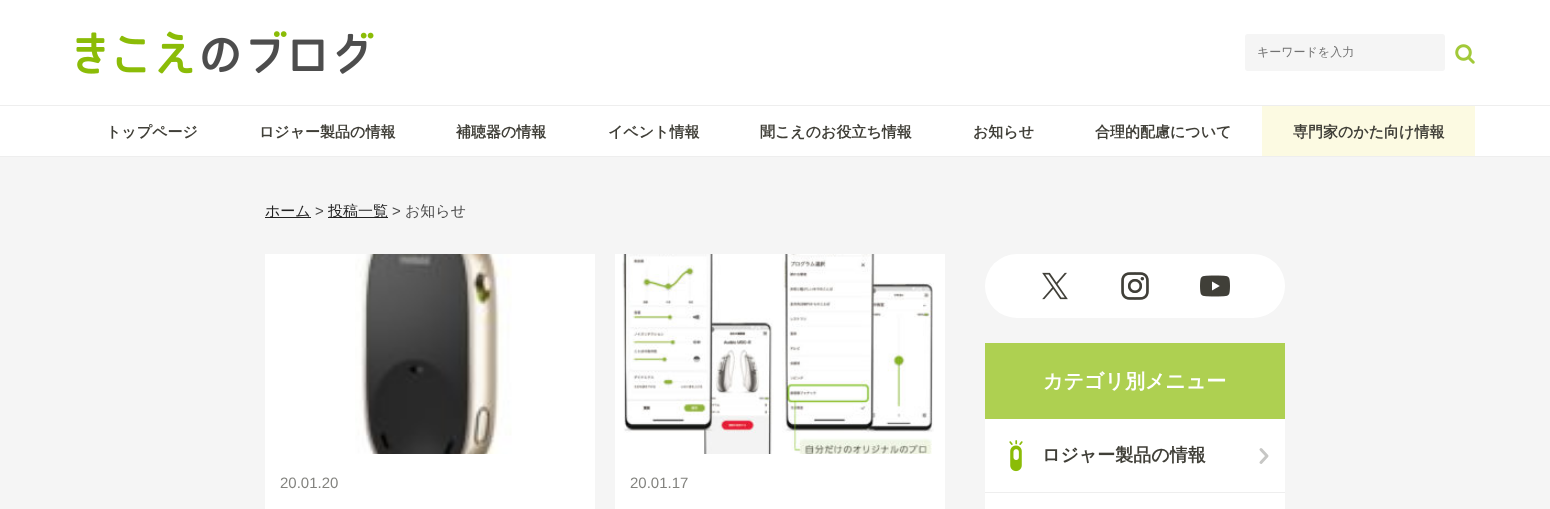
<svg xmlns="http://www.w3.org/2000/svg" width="1550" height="509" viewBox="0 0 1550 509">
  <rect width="100%" height="100%" fill="#fff"/>
  <path d="M0 156h1550v1H0z" fill="#eee"/>
  <image x="76" y="31" width="298" height="43" href="img/1.png"/>
  <rect x="1245" y="34" width="200" height="37" rx="3" fill="#f5f5f5"/>
  <image x="1455" y="44" width="20" height="20" href="img/2.png"/>
  <path d="M0 105h1550v1H0z" fill="#eee"/>
  <path d="M1262 106h213v50H1262z" fill="#fcfae2"/>
  <path d="M0 157h1550v352H0z" fill="#f5f5f5"/>
  <path d="M265 217h46v1H265z" fill="#222"/>
  <path d="M328 217h60v1H328z" fill="#222"/>
  <rect x="985" y="254" width="300" height="64" rx="32" fill="#fff"/>
  <image x="1042" y="272" width="26" height="28" href="img/3.png"/>
  <image x="1121" y="272" width="28" height="28" href="img/4.png"/>
  <image x="1200" y="275" width="30" height="22" href="img/5.png"/>
  <path d="M985 419h300v90H985z" fill="#fff"/>
  <path d="M985 343h300v76H985z" fill="#aed051"/>
  <path d="M985 492h300v1H985z" fill="#eee"/>
  <path d="M1261 449.5L1267 456L1261 462.5" fill="none" stroke="#c7c7c5" stroke-width="3" stroke-linecap="round" stroke-linejoin="round"/>
  <image x="1009" y="440" width="14" height="32" href="img/6.png"/>
  <path d="M265 254h330v255H265z" fill="#fff"/>
  <image x="355" y="254" width="157" height="200" href="img/7.png"/>
  <path d="M615 254h330v255H615z" fill="#fff"/>
  <image x="622" y="254" width="312" height="200" href="img/8.png"/>
  <text x="1257" y="56" font-family="WenQuanYi Zen Hei" font-size="12" font-weight="500" fill="#717171">キーワードを入力</text>
  <g font-family="WenQuanYi Zen Hei" font-size="15" font-weight="bold" fill="#403f38">
    <text x="106" y="137">トップページ</text>
    <text x="259" y="137">ロジャー製品の情報</text>
    <text x="456" y="137">補聴器の情報</text>
    <text x="608" y="137">イベント情報</text>
    <text x="760" y="137">聞こえのお役立ち情報</text>
    <text x="973" y="137">お知らせ</text>
    <text x="1095" y="137">合理的配慮について</text>
    <text x="1293" y="137">専門家のかた向け情報</text>
  </g>
  <text x="265" y="216" font-family="WenQuanYi Zen Hei" font-size="15" font-weight="500" fill="#222">ホーム</text>
  <text x="315" y="216" font-family="Liberation Sans" font-size="15" fill="#4d4d4d">&gt;</text>
  <text x="328" y="216" font-family="WenQuanYi Zen Hei" font-size="15" font-weight="500" fill="#222">投稿一覧</text>
  <text x="392" y="216" font-family="Liberation Sans" font-size="15" fill="#4d4d4d">&gt;</text>
  <text x="405" y="216" font-family="WenQuanYi Zen Hei" font-size="15" font-weight="500" fill="#4d4d4d">お知らせ</text>
  <text x="1043" y="388" font-family="WenQuanYi Zen Hei" font-size="20" font-weight="bold" fill="#fff">カテゴリ別メニュー</text>
  <text x="1042" y="461" font-family="WenQuanYi Zen Hei" font-size="18" font-weight="bold" fill="#403f38">ロジャー製品の情報</text>
  <g font-family="Liberation Sans" font-size="15" fill="#83837f">
    <text x="280" y="488">20.01.20</text>
    <text x="630" y="488">20.01.17</text>
  </g>
</svg>
